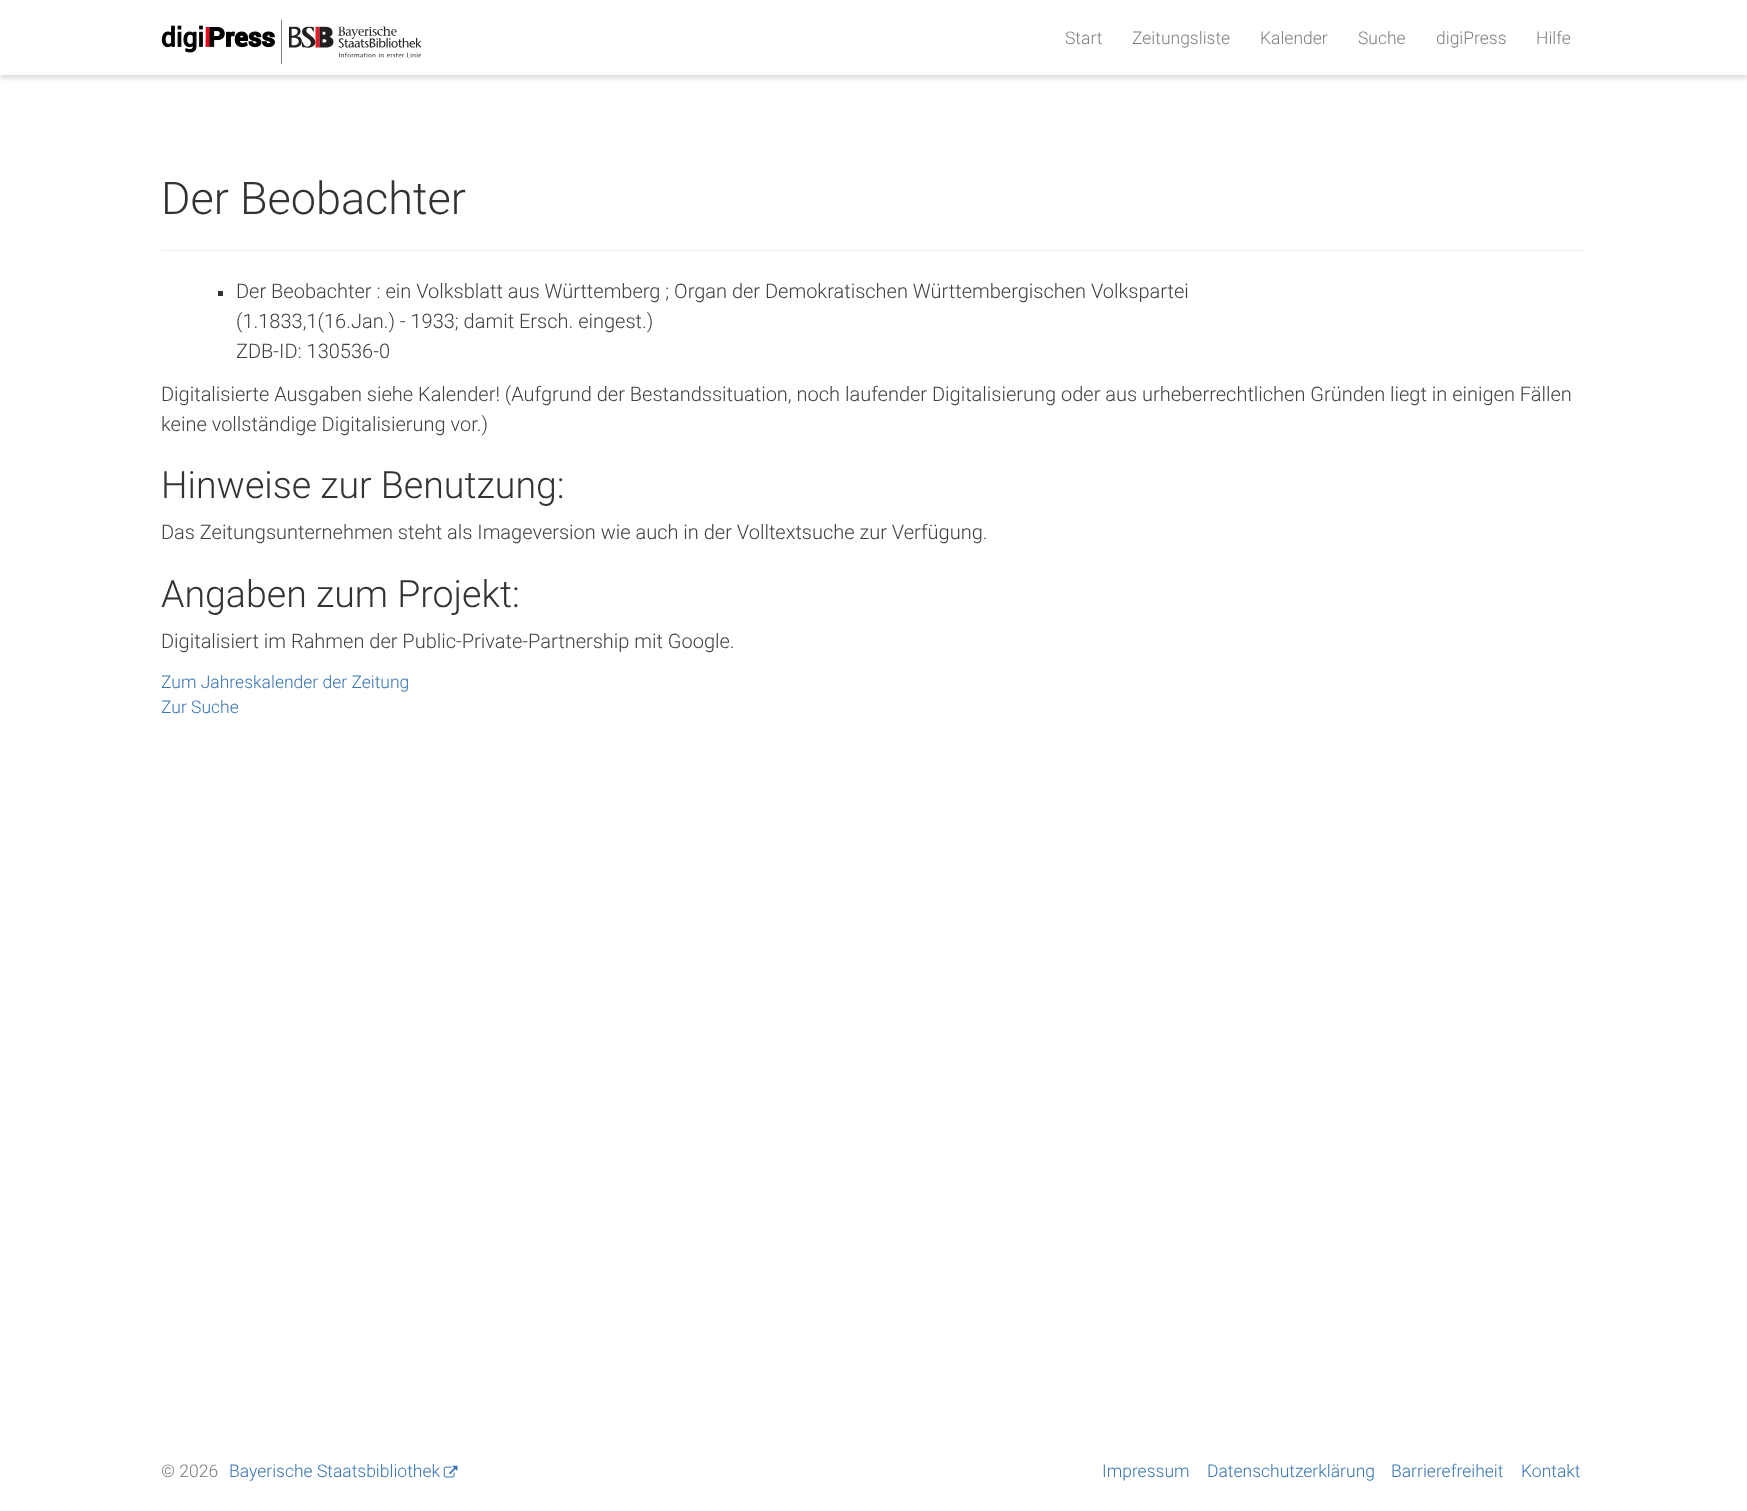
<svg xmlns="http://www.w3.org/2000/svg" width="1747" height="1511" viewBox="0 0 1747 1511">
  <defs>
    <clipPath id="clip1"><path d="M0 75h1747v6H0z"/></clipPath>
  </defs>
  <rect width="100%" height="100%" fill="#fff"/>
  <g clip-path="url(#clip1)">
    <path d="M0 3h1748v75H0z" fill="#00000026" filter="blur(2.5px)"/>
  </g>
  <image x="161" y="25" width="114" height="28" href="img/1.png"/>
  <path d="M281 20h1v44H281z" fill="#808080"/>
  <image x="289" y="26" width="132" height="32" href="img/2.png"/>
  <path d="M161 250h1425v1H161z" fill="#eee"/>
  <path d="M218 291h5v5H218z" fill="#333"/>
  <image x="443" y="1465" width="15" height="13" href="img/3.png"/>
  <g font-family="Roboto" font-size="17.5" font-weight="300" fill="#808080">
    <text x="1065" y="44">Start</text>
    <text x="1132" y="44">Zeitungsliste</text>
    <text x="1260" y="44">Kalender</text>
    <text x="1358" y="44">Suche</text>
    <text x="1436" y="44">digiPress</text>
    <text x="1536" y="44">Hilfe</text>
  </g>
  <text x="161" y="214" font-family="Roboto" font-size="45" font-weight="300" fill="#333">Der Beobachter</text>
  <g font-family="Roboto" font-size="20" font-weight="300" fill="#404040">
    <text x="236" y="298">Der Beobachter : ein Volksblatt aus Württemberg ; Organ der Demokratischen Württembergischen Volkspartei</text>
    <text x="236" y="328">(1.1833,1(16.Jan.) - 1933; damit Ersch. eingest.)</text>
    <text x="236" y="358">ZDB-ID: 130536-0</text>
    <text x="161" y="401">Digitalisierte Ausgaben siehe Kalender! (Aufgrund der Bestandssituation, noch laufender Digitalisierung oder aus urheberrechtlichen Gründen liegt in einigen Fällen</text>
    <text x="161" y="431">keine vollständige Digitalisierung vor.)</text>
  </g>
  <text x="161" y="498" font-family="Roboto" font-size="37.5" font-weight="300" fill="#333">Hinweise zur Benutzung:</text>
  <text x="161" y="539" font-family="Roboto" font-size="20" font-weight="300" fill="#404040">Das Zeitungsunternehmen steht als Imageversion wie auch in der Volltextsuche zur Verfügung.</text>
  <text x="161" y="607" font-family="Roboto" font-size="37.5" font-weight="300" fill="#333">Angaben zum Projekt:</text>
  <text x="161" y="648" font-family="Roboto" font-size="20" font-weight="300" fill="#404040">Digitalisiert im Rahmen der Public-Private-Partnership mit Google.</text>
  <g font-family="Roboto" font-size="17.5" font-weight="300" fill="#3875b2">
    <text x="161" y="688">Zum Jahreskalender der Zeitung</text>
    <text x="161" y="713">Zur Suche</text>
  </g>
  <text x="161" y="1477" font-family="Roboto" font-size="17.5" font-weight="300" fill="#777">© 2026</text>
  <g font-family="Roboto" font-size="17.5" font-weight="300" fill="#3875b2">
    <text x="229" y="1477">Bayerische Staatsbibliothek</text>
    <text x="1102" y="1477">Impressum</text>
    <text x="1207" y="1477">Datenschutzerklärung</text>
    <text x="1391" y="1477">Barrierefreiheit</text>
    <text x="1521" y="1477">Kontakt</text>
  </g>
</svg>
